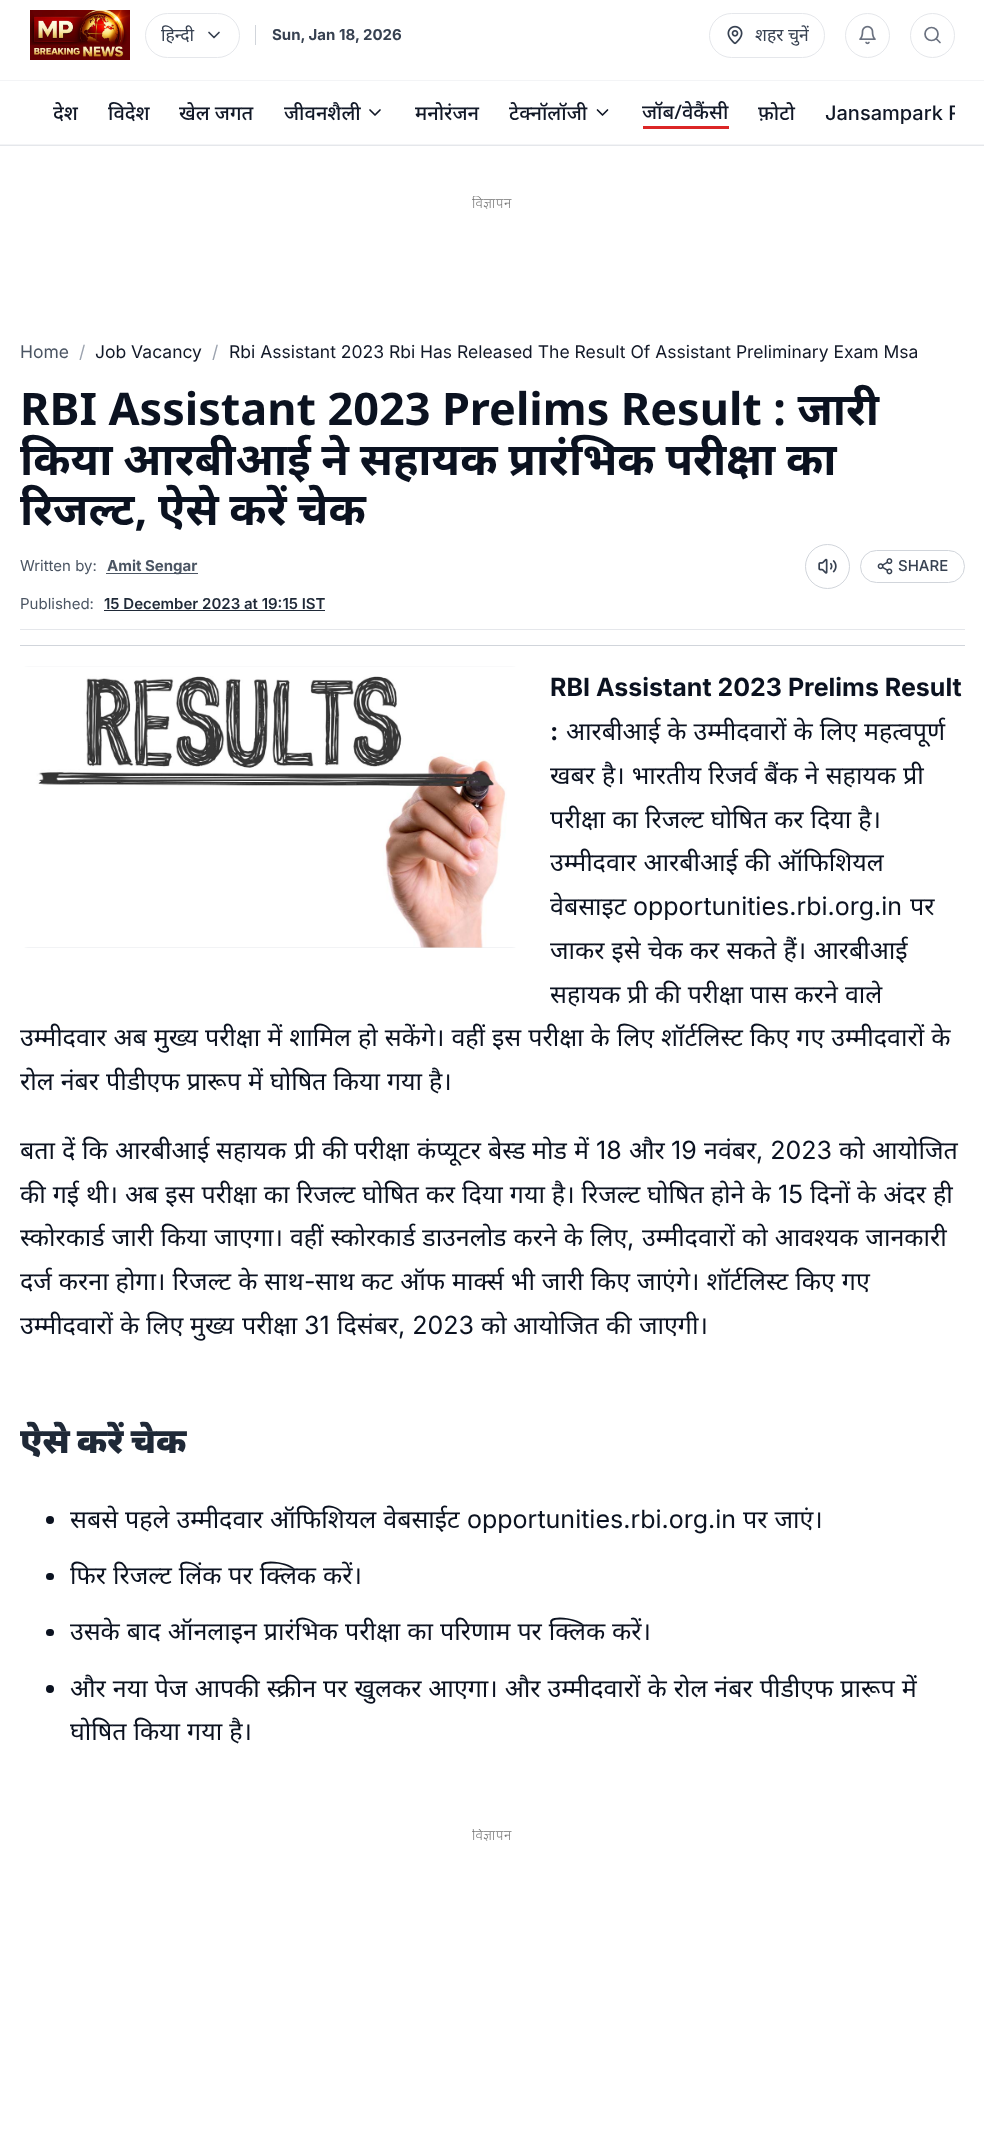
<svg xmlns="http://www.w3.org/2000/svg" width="984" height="2141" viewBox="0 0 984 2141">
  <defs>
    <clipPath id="clip1"><path d="M30 96h925v33H30z"/></clipPath>
    <clipPath id="clip2"><path d="M38 196h910v113H38z"/></clipPath>
    <clipPath id="clip3"><path d="M305 1829h375v312H305z"/></clipPath>
  </defs>
  <rect width="100%" height="100%" fill="#fff"/>
  <path d="M0 145h984v1H0z" fill="#e5e7eb"/>
  <image x="30" y="10" width="100" height="50" href="img/1.png"/>
  <rect x="145.5" y="13.5" width="94" height="44" rx="22" fill="none" stroke="#e5e7eb"/>
  <path d="M209 32.5L214 37.5L219 32.5" fill="none" stroke="#374151" stroke-width="1.7" stroke-linecap="round" stroke-linejoin="round"/>
  <path d="M255 25h1v20H255z" fill="#d1d5db"/>
  <rect x="709.5" y="13.5" width="115" height="44" rx="22" fill="none" stroke="#e5e7eb"/>
  <image x="727" y="25" width="16" height="20" href="img/2.png"/>
  <circle cx="867.5" cy="35.5" r="22" fill="none" stroke="#e5e7eb"/>
  <image x="859" y="25" width="17" height="20" href="img/3.png"/>
  <circle cx="932.5" cy="35.5" r="22" fill="none" stroke="#e5e7eb"/>
  <circle cx="931.5" cy="34" r="6.5" fill="none" stroke="#6b7280" stroke-width="1.7"/>
  <path d="M940 42.5L936.5 39" fill="none" stroke="#6b7280" stroke-width="1.7" stroke-linecap="round" stroke-linejoin="round"/>
  <path d="M0 80h984v1H0z" fill="#f3f4f6"/>
  <path d="M370 110L375 115L380 110" fill="none" stroke="#111827" stroke-width="1.7" stroke-linecap="round" stroke-linejoin="round"/>
  <path d="M597.5 110L602.5 115L607.5 110" fill="none" stroke="#111827" stroke-width="1.7" stroke-linecap="round" stroke-linejoin="round"/>
  <path d="M643 126h86v3H643z" fill="#dc2626"/>
  <path d="M0 144h984v1H0z" fill="#f3f4f6"/>
  <path d="M106 573h92v1H106z" fill="#4b5563"/>
  <circle cx="827.5" cy="566.5" r="22" fill="none" stroke="#d1d5db"/>
  <image x="818" y="558" width="19" height="16" href="img/4.png"/>
  <rect x="860.5" y="550.5" width="104" height="32" rx="16" fill="none" stroke="#d1d5db"/>
  <image x="877" y="558" width="16" height="17" href="img/5.png"/>
  <path d="M20 629h945v1H20z" fill="#e5e7eb"/>
  <path d="M104 610h221v1H104z" fill="#1f2937"/>
  <path d="M20 645h945v1H20z" fill="#d1d5db"/>
  <rect x="20" y="666" width="500" height="282" rx="8" fill="#e5e7eb"/>
  <image x="20" y="666" width="500" height="282" href="img/6.png"/>
  <circle cx="50" cy="1520" r="4" fill="#0b1220"/>
  <rect x="46" y="1573" width="8" height="7" rx="3.5" fill="#0b1220"/>
  <rect x="46" y="1629" width="8" height="7" rx="3.5" fill="#0b1220"/>
  <circle cx="50" cy="1689" r="4" fill="#0b1220"/>
  <text x="161" y="41" font-family="Noto Sans" font-size="17.5" fill="#374151">हिन्दी</text>
  <text x="272" y="40" font-family="Inter" font-size="15" font-weight="bold" fill="#374151">Sun, Jan 18, 2026</text>
  <text x="755" y="41" font-family="Noto Sans" font-size="17.5" fill="#374151">शहर चुनें</text>
  <g font-family="Noto Sans" font-size="20" font-weight="500" fill="#111827">
    <text x="53" y="120">देश</text>
    <text x="108" y="120">विदेश</text>
    <text x="179" y="120">खेल जगत</text>
    <text x="284" y="120">जीवनशैली</text>
    <text x="415" y="120">मनोरंजन</text>
    <text x="509" y="120">टेक्नॉलॉजी</text>
    <text x="642" y="119">जॉब/वेकैंसी</text>
    <text x="758" y="120">फ़ोटो</text>
  </g>
  <g clip-path="url(#clip1)">
    <text x="825" y="120" font-family="Inter" font-size="20" font-weight="500" fill="#111827">Jansampark R</text>
  </g>
  <g clip-path="url(#clip2)">
    <text x="472" y="208" font-family="Noto Sans" font-size="14" font-weight="300" letter-spacing="0.5" fill="#777">विज्ञापन</text>
  </g>
  <text x="20" y="358" font-family="Inter" font-size="17.5" fill="#4b5563">Home</text>
  <text x="79" y="358" font-family="Inter" font-size="17.5" fill="#9ca3af">/</text>
  <text x="95" y="358" font-family="Inter" font-size="17.5" fill="#111827">Job Vacancy</text>
  <text x="212" y="358" font-family="Inter" font-size="17.5" fill="#9ca3af">/</text>
  <text x="229" y="358" font-family="Inter" font-size="17.5" fill="#111827">Rbi Assistant 2023 Rbi Has Released The Result Of Assistant Preliminary Exam Msa</text>
  <g font-family="Noto Sans" font-size="45" font-weight="bold" fill="#0b1220">
    <text x="20" y="425" word-spacing="-0.25">RBI Assistant 2023 Prelims Result : जारी</text>
    <text x="20" y="475" word-spacing="-1">किया आरबीआई ने सहायक प्रारंभिक परीक्षा का</text>
    <text x="20" y="525" word-spacing="-1">रिजल्ट, ऐसे करें चेक</text>
  </g>
  <text x="20" y="571" font-family="Inter" font-size="15" fill="#4b5563">Written by:</text>
  <text x="107" y="571" font-family="Inter" font-size="15" font-weight="bold" fill="#4b5563">Amit Sengar</text>
  <text x="898" y="571" font-family="Inter" font-size="15" font-weight="500" fill="#374151">SHARE</text>
  <text x="20" y="609" font-family="Inter" font-size="15" fill="#4b5563">Published:</text>
  <text x="104" y="609" font-family="Inter" font-size="15" font-weight="600" fill="#1f2937">15 December 2023 at 19:15 IST</text>
  <g font-family="Inter" font-size="25" font-weight="bold" fill="#0b1220">
    <text x="550" y="696">RBI Assistant 2023 Prelims Result</text>
    <text x="550" y="740">:</text>
  </g>
  <g font-family="Noto Sans" font-size="25" fill="#0b1220">
    <text x="566" y="740" word-spacing="0.5">आरबीआई के उम्मीदवारों के लिए महत्वपूर्ण</text>
    <text x="550" y="784" word-spacing="0.5">खबर है। भारतीय रिजर्व बैंक ने सहायक प्री</text>
    <text x="550" y="828" word-spacing="0.5">परीक्षा का रिजल्ट घोषित कर दिया है।</text>
    <text x="550" y="871" word-spacing="0.5">उम्मीदवार आरबीआई की ऑफिशियल</text>
    <text x="550" y="915">वेबसाइट</text>
  </g>
  <text x="633" y="915" font-family="Inter" font-size="25" fill="#0b1220">opportunities.rbi.org.in</text>
  <g font-family="Noto Sans" font-size="25" fill="#0b1220">
    <text x="910" y="915">पर</text>
    <text x="550" y="959" word-spacing="0.5">जाकर इसे चेक कर सकते हैं। आरबीआई</text>
    <text x="550" y="1003" word-spacing="0.5">सहायक प्री की परीक्षा पास करने वाले</text>
    <text x="20" y="1046" word-spacing="0.5">उम्मीदवार अब मुख्य परीक्षा में शामिल हो सकेंगे। वहीं इस परीक्षा के लिए शॉर्टलिस्ट किए गए उम्मीदवारों के</text>
    <text x="20" y="1090" word-spacing="0.5">रोल नंबर पीडीएफ प्रारूप में घोषित किया गया है।</text>
    <text x="20" y="1159">बता</text>
    <text x="62" y="1159">दें</text>
    <text x="82" y="1159">कि</text>
    <text x="115" y="1159">आरबीआई</text>
    <text x="216" y="1159">सहायक</text>
    <text x="294" y="1159">प्री</text>
    <text x="322" y="1159">की</text>
    <text x="354" y="1159">परीक्षा</text>
    <text x="417" y="1159">कंप्यूटर</text>
    <text x="488" y="1159">बेस्ड</text>
    <text x="532" y="1159">मोड</text>
    <text x="574" y="1159">में</text>
  </g>
  <text x="596" y="1159" font-family="Inter" font-size="25" fill="#0b1220">18</text>
  <text x="629" y="1159" font-family="Noto Sans" font-size="25" fill="#0b1220">और</text>
  <text x="671" y="1159" font-family="Inter" font-size="25" fill="#0b1220">19</text>
  <text x="704" y="1159" font-family="Noto Sans" font-size="25" fill="#0b1220">नवंबर</text>
  <text x="756" y="1159" font-family="Inter" font-size="25" fill="#0b1220">, 2023</text>
  <g font-family="Noto Sans" font-size="25" fill="#0b1220">
    <text x="839" y="1159">को</text>
    <text x="872" y="1159">आयोजित</text>
    <text x="20" y="1203" word-spacing="0.5">की गई थी। अब इस परीक्षा का रिजल्ट घोषित कर दिया गया है। रिजल्ट घोषित होने के</text>
  </g>
  <text x="778" y="1203" font-family="Inter" font-size="25" fill="#0b1220">15</text>
  <g font-family="Noto Sans" font-size="25" fill="#0b1220">
    <text x="810" y="1203" word-spacing="0.5">दिनों के अंदर ही</text>
    <text x="20" y="1246" word-spacing="0.5">स्कोरकार्ड जारी किया जाएगा। वहीं स्कोरकार्ड डाउनलोड करने के लिए</text>
  </g>
  <text x="627" y="1246" font-family="Inter" font-size="25" fill="#0b1220">,</text>
  <g font-family="Noto Sans" font-size="25" fill="#0b1220">
    <text x="642" y="1246" word-spacing="0.5">उम्मीदवारों को आवश्यक जानकारी</text>
    <text x="20" y="1290" word-spacing="0.5">दर्ज करना होगा। रिजल्ट के साथ</text>
  </g>
  <text x="304" y="1290" font-family="Inter" font-size="25" fill="#0b1220">-</text>
  <g font-family="Noto Sans" font-size="25" fill="#0b1220">
    <text x="315" y="1290" word-spacing="0.5">साथ कट ऑफ मार्क्स भी जारी किए जाएंगे। शॉर्टलिस्ट किए गए</text>
    <text x="20" y="1334">उम्मीदवारों</text>
    <text x="120" y="1334">के</text>
    <text x="146" y="1334">लिए</text>
    <text x="190" y="1334">मुख्य</text>
    <text x="242" y="1334">परीक्षा</text>
  </g>
  <text x="304" y="1334" font-family="Inter" font-size="25" fill="#0b1220">31</text>
  <text x="337" y="1334" font-family="Noto Sans" font-size="25" fill="#0b1220">दिसंबर</text>
  <text x="398" y="1334" font-family="Inter" font-size="25" fill="#0b1220">, 2023</text>
  <g font-family="Noto Sans" font-size="25" fill="#0b1220">
    <text x="481" y="1334">को</text>
    <text x="513" y="1334">आयोजित</text>
    <text x="606" y="1334">की</text>
    <text x="639" y="1334">जाएगी।</text>
  </g>
  <text x="20" y="1453" word-spacing="-2" font-family="Noto Sans" font-size="35" font-weight="900" fill="#1f2937">ऐसे करें चेक</text>
  <text x="70" y="1528" word-spacing="0.5" font-family="Noto Sans" font-size="25" fill="#0b1220">सबसे पहले उम्मीदवार ऑफिशियल वेबसाईट</text>
  <text x="467" y="1528" font-family="Inter" font-size="25" fill="#0b1220">opportunities.rbi.org.in</text>
  <g font-family="Noto Sans" font-size="25" fill="#0b1220">
    <text x="743" y="1528" word-spacing="0.5">पर जाएं।</text>
    <text x="70" y="1584" word-spacing="0.5">फिर रिजल्ट लिंक पर क्लिक करें।</text>
    <text x="70" y="1640" word-spacing="0.5">उसके बाद ऑनलाइन प्रारंभिक परीक्षा का परिणाम पर क्लिक करें।</text>
    <text x="70" y="1697" word-spacing="0.5">और नया पेज आपकी स्क्रीन पर खुलकर आएगा। और उम्मीदवारों के रोल नंबर पीडीएफ प्रारूप में</text>
    <text x="70" y="1740" word-spacing="0.5">घोषित किया गया है।</text>
  </g>
  <g clip-path="url(#clip3)">
    <text x="472" y="1840" font-family="Noto Sans" font-size="14" font-weight="300" letter-spacing="0.5" fill="#777">विज्ञापन</text>
  </g>
</svg>
